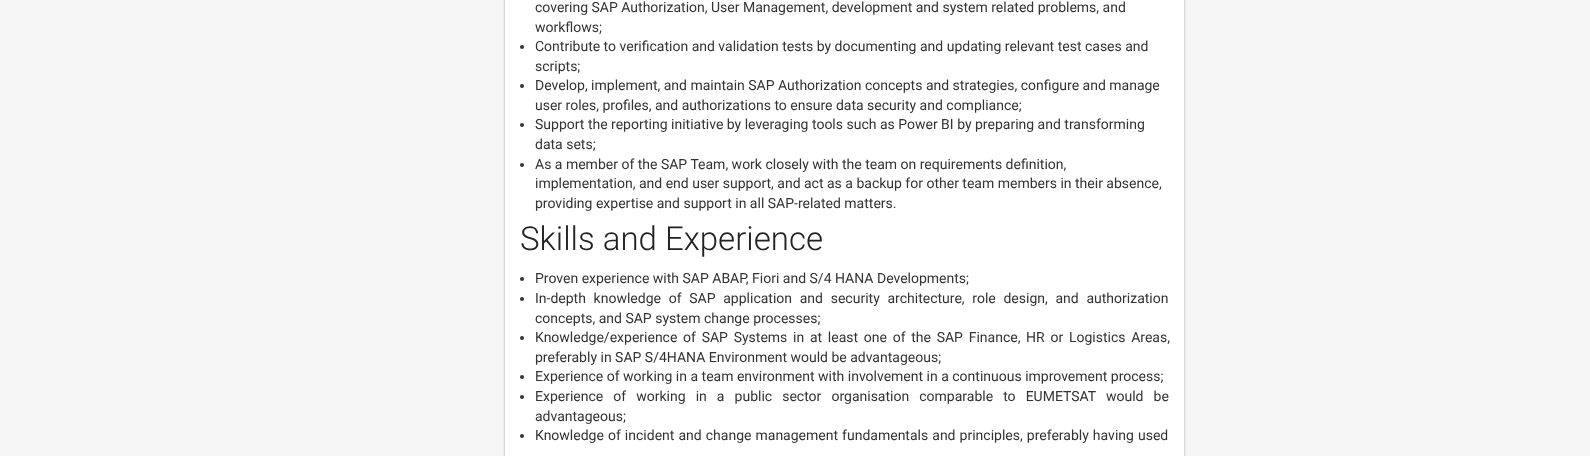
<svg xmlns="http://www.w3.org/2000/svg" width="1590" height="456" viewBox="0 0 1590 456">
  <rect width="100%" height="100%" fill="#f5f5f5"/>
  <rect x="505" y="-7" width="679" height="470" rx="4" fill="#0000003d" filter="blur(1px)"/>
  <rect x="505" y="-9" width="679" height="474" rx="4" fill="#0000001f" filter="blur(1.5px)"/>
  <path d="M505 0h679v456H505z" fill="#fff"/>
  <circle cx="522" cy="47" r="2" fill="#333"/>
  <circle cx="522" cy="86" r="2" fill="#333"/>
  <circle cx="522" cy="125" r="2" fill="#333"/>
  <circle cx="522" cy="165" r="2" fill="#333"/>
  <circle cx="522" cy="279" r="2" fill="#333"/>
  <circle cx="522" cy="299" r="2" fill="#333"/>
  <circle cx="522" cy="338" r="2" fill="#333"/>
  <circle cx="522" cy="377" r="2" fill="#333"/>
  <circle cx="522" cy="397" r="2" fill="#333"/>
  <circle cx="522" cy="436" r="2" fill="#333"/>
  <g font-family="Roboto" font-size="14" fill="#333">
    <text x="535" y="12">covering SAP Authorization, User Management, development and system related problems, and</text>
    <text x="535" y="32">workflows;</text>
    <text x="535" y="51">Contribute to verification and validation tests by documenting and updating relevant test cases and</text>
    <text x="535" y="71">scripts;</text>
    <text x="535" y="90">Develop, implement, and maintain SAP Authorization concepts and strategies, configure and manage</text>
    <text x="535" y="110">user roles, profiles, and authorizations to ensure data security and compliance;</text>
    <text x="535" y="129">Support the reporting initiative by leveraging tools such as Power BI by preparing and transforming</text>
    <text x="535" y="149">data sets;</text>
    <text x="535" y="169">As a member of the SAP Team, work closely with the team on requirements definition,</text>
    <text x="535" y="188">implementation, and end user support, and act as a backup for other team members in their absence,</text>
    <text x="535" y="208">providing expertise and support in all SAP-related matters.</text>
  </g>
  <text x="520" y="250" font-family="Roboto" font-size="33" font-weight="300" fill="#222">Skills and Experience</text>
  <g font-family="Roboto" font-size="14" fill="#333">
    <text x="535" y="283">Proven experience with SAP ABAP, Fiori and S/4 HANA Developments;</text>
    <text x="535" y="303" word-spacing="4.25">In-depth knowledge of SAP application and security architecture, role design, and authorization</text>
    <text x="535" y="323">concepts, and SAP system change processes;</text>
    <text x="535" y="342" word-spacing="2.25">Knowledge/experience of SAP Systems in at least one of the SAP Finance, HR or Logistics Areas,</text>
    <text x="535" y="362">preferably in SAP S/4HANA Environment would be advantageous;</text>
    <text x="535" y="381">Experience of working in a team environment with involvement in a continuous improvement process;</text>
    <text x="535" y="401" word-spacing="6.6">Experience of working in a public sector organisation comparable to EUMETSAT would be</text>
    <text x="535" y="421">advantageous;</text>
    <text x="535" y="440" word-spacing="0.6">Knowledge of incident and change management fundamentals and principles, preferably having used</text>
  </g>
</svg>
